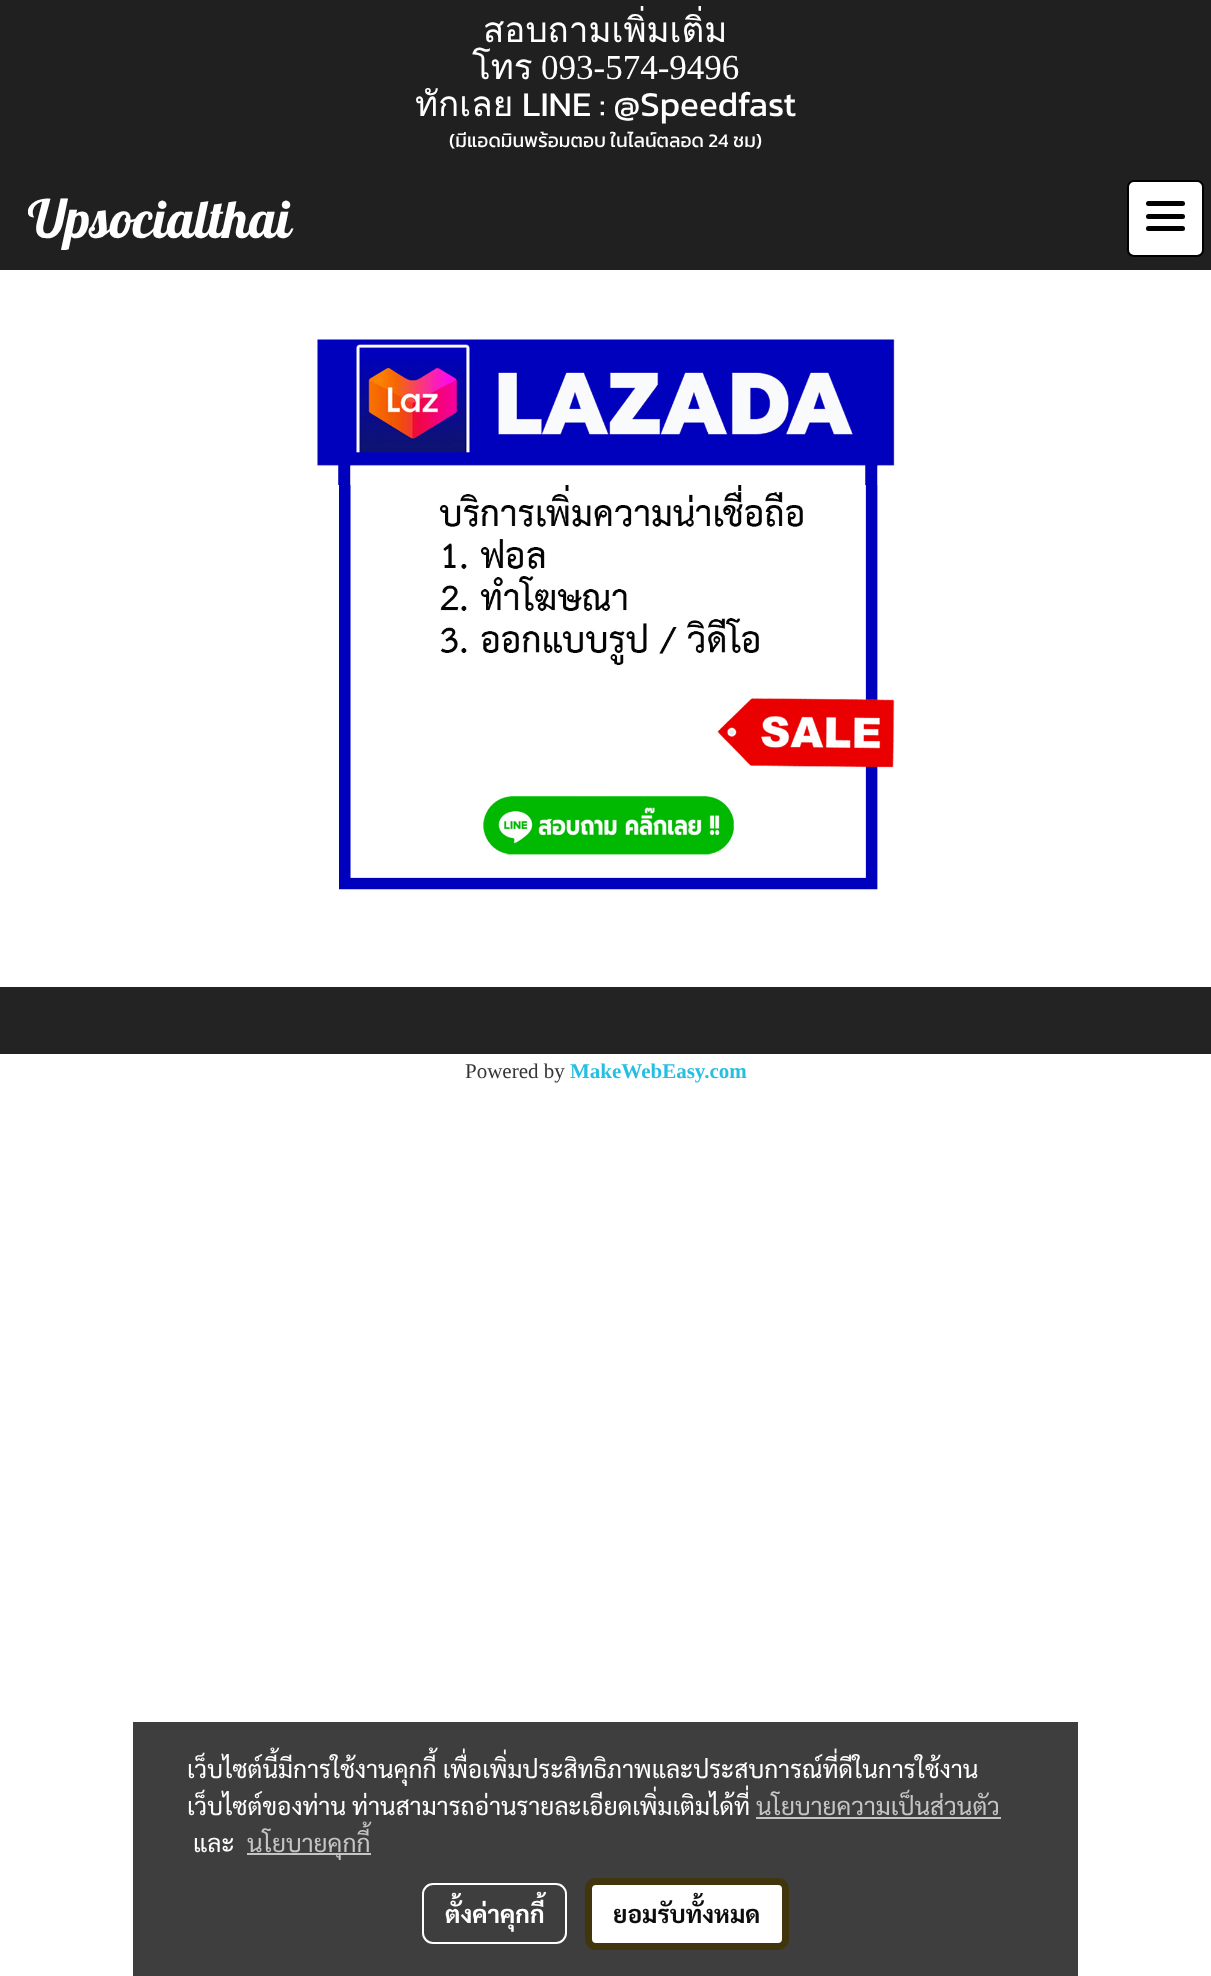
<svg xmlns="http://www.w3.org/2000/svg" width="1211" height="1976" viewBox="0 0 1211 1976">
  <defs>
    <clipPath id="clip1"><path d="M28 187h749v63H28z"/></clipPath>
  </defs>
  <rect width="100%" height="100%" fill="#fff"/>
  <path d="M0 0h1211v270H0z" fill="#202020"/>
  <rect x="1128" y="181" width="75" height="75" rx="6" fill="#fff" stroke="#000" stroke-width="2"/>
  <rect x="1146" y="214" width="39" height="5" rx="2.5" fill="#000"/>
  <rect x="1146" y="201" width="39" height="5" rx="2.5" fill="#000"/>
  <rect x="1146" y="226" width="39" height="5" rx="2.5" fill="#000"/>
  <image x="317" y="339" width="578" height="551" href="img/1.png"/>
  <path d="M0 987h1211v67H0z" fill="#232323"/>
  <path d="M133 1722h945v254H133z" fill="#3e3e3e"/>
  <path d="M756 1817h245v2H756z" fill="#c5c5c5"/>
  <path d="M247 1853h124v2H247z" fill="#c5c5c5"/>
  <rect x="423" y="1884" width="143" height="59" rx="10" fill="none" stroke="#fff" stroke-width="2"/>
  <rect x="588.5" y="1881.5" width="197" height="65" rx="7.5" fill="#fff" stroke="#40350d" stroke-width="7"/>
  <g font-family="Loma" font-size="35" fill="#fff">
    <text x="483" y="42">สอบถามเพิ่มเติ่ม</text>
    <text x="472" y="79">โทร</text>
  </g>
  <text x="541" y="79" font-family="Liberation Serif" font-size="35" fill="#fff">093-574-9496</text>
  <text x="415" y="116" font-family="Loma" font-size="35" fill="#fff">ทักเลย</text>
  <text x="522" y="116" font-family="Kanit" font-size="35" fill="#fff">LINE : @Speedfast</text>
  <text x="449" y="147" font-family="Kanit" font-size="19.25" fill="#fff">(มีแอดมินพร้อมตอบ ในไลน์ตลอด 24 ชม)</text>
  <g clip-path="url(#clip1)">
    <text x="28" y="238" font-family="Pattaya" font-size="52.5" fill="#fff">Upsocialthai</text>
  </g>
  <text x="465" y="1078" font-family="Liberation Serif" font-size="21" fill="#353535">Powered by</text>
  <text x="570" y="1078" font-family="Liberation Serif" font-size="21" font-weight="bold" fill="#28bee3">MakeWebEasy.com</text>
  <g font-family="Sarabun" font-size="24.5" fill="#fff">
    <text x="187" y="1778">เว็บไซต์นี้มีการใช้งานคุกกี้ เพื่อเพิ่มประสิทธิภาพและประสบการณ์ที่ดีในการใช้งาน</text>
    <text x="187" y="1815">เว็บไซต์ของท่าน ท่านสามารถอ่านรายละเอียดเพิ่มเติมได้ที่</text>
  </g>
  <text x="756" y="1815" font-family="Sarabun" font-size="24.5" fill="#c5c5c5">นโยบายความเป็นส่วนตัว</text>
  <text x="193" y="1852" font-family="Sarabun" font-size="24.5" fill="#fff">และ</text>
  <text x="247" y="1852" font-family="Sarabun" font-size="24.5" fill="#c5c5c5">นโยบายคุกกี้</text>
  <text x="445" y="1923" font-family="Sarabun" font-size="24.5" font-weight="bold" fill="#fff">ตั้งค่าคุกกี้</text>
  <text x="613" y="1923" font-family="Sarabun" font-size="24.5" font-weight="bold" fill="#0d0d0d">ยอมรับทั้งหมด</text>
</svg>
